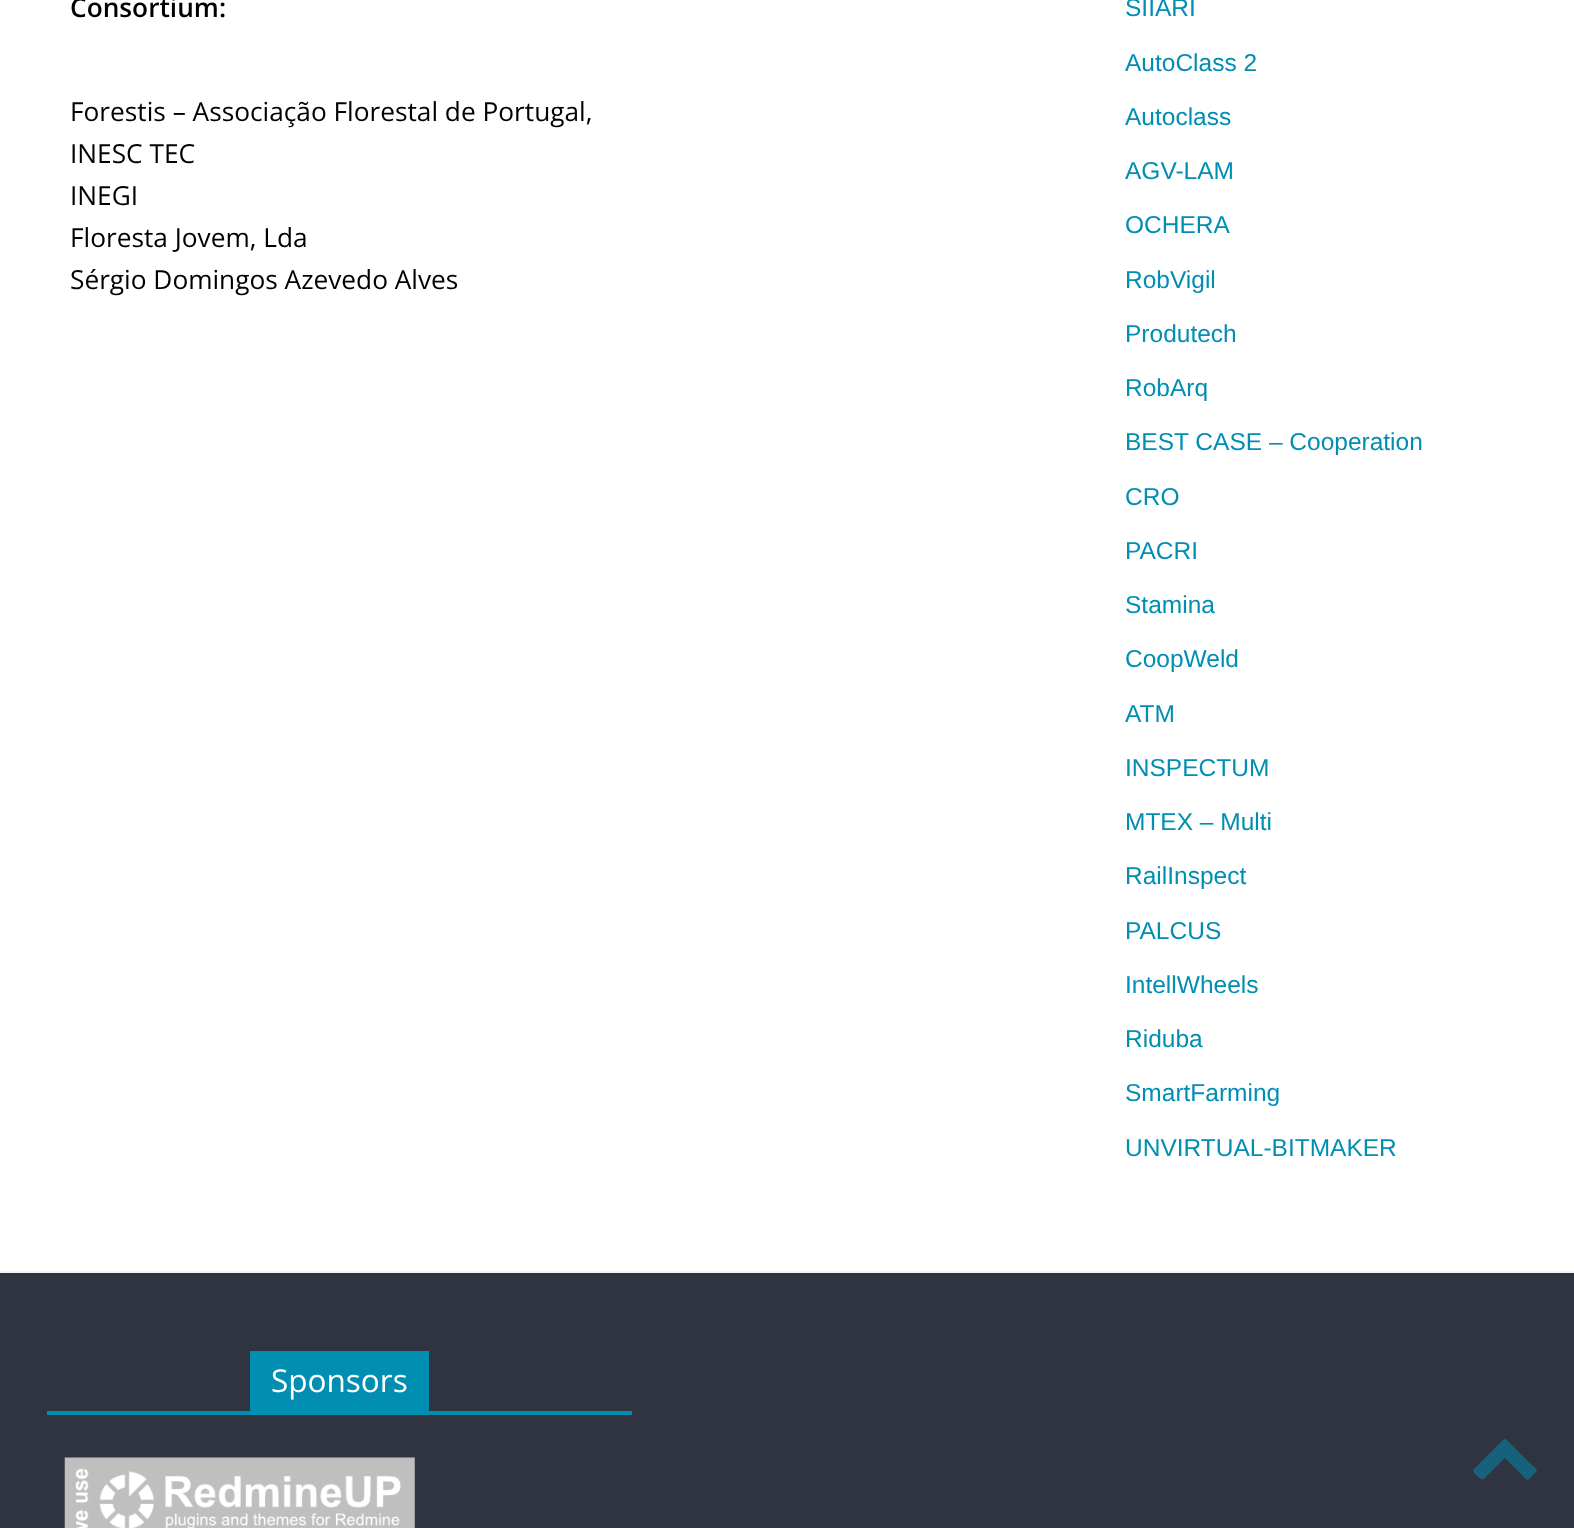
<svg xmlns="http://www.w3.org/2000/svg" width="1574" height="1528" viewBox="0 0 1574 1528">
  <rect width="100%" height="100%" fill="#fff"/>
  <path d="M0 1273h1574v255H0z" fill="#303440"/>
  <path d="M0 1271h1574v2H0z" fill="#f2f2f2"/>
  <path d="M47 1411h585v4H47z" fill="#008eb3"/>
  <path d="M250 1351h179v60H250z" fill="#008eb3"/>
  <image x="64" y="1457" width="351" height="71" href="img/1.png"/>
  <path d="M1536 1472C1528 1480 1529 1483 1522 1475L1505 1458L1488 1475C1481 1482 1482 1480 1475 1474C1471 1470 1475 1468 1479 1464L1498 1445C1506 1437 1504 1437 1512 1445L1531 1464C1532 1465 1539 1470 1536 1472Z" fill="#18617a"/>
  <text x="70" y="17" font-family="Open Sans" font-size="26.25" font-weight="600" fill="#000">Consortium:</text>
  <g font-family="Open Sans" font-size="26.25" fill="#000">
    <text x="70" y="121">Forestis – Associação Florestal de Portugal,</text>
    <text x="70" y="163">INESC TEC</text>
    <text x="70" y="205">INEGI</text>
    <text x="70" y="247">Floresta Jovem, Lda</text>
    <text x="70" y="289">Sérgio Domingos Azevedo Alves</text>
  </g>
  <g font-family="Liberation Sans" font-size="24.5" fill="#008eb3">
    <text x="1125" y="16">SIIARI</text>
    <text x="1125" y="71">AutoClass 2</text>
    <text x="1125" y="125">Autoclass</text>
    <text x="1125" y="179">AGV-LAM</text>
    <text x="1125" y="233">OCHERA</text>
    <text x="1125" y="288">RobVigil</text>
    <text x="1125" y="342">Produtech</text>
    <text x="1125" y="396">RobArq</text>
    <text x="1125" y="450">BEST CASE – Cooperation</text>
    <text x="1125" y="505">CRO</text>
    <text x="1125" y="559">PACRI</text>
    <text x="1125" y="613">Stamina</text>
    <text x="1125" y="667">CoopWeld</text>
    <text x="1125" y="722">ATM</text>
    <text x="1125" y="776">INSPECTUM</text>
    <text x="1125" y="830">MTEX – Multi</text>
    <text x="1125" y="884">RailInspect</text>
    <text x="1125" y="939">PALCUS</text>
    <text x="1125" y="993">IntellWheels</text>
    <text x="1125" y="1047">Riduba</text>
    <text x="1125" y="1101">SmartFarming</text>
    <text x="1125" y="1156">UNVIRTUAL-BITMAKER</text>
  </g>
  <text x="271" y="1392" font-family="Open Sans" font-size="31.5" fill="#fff">Sponsors</text>
</svg>
